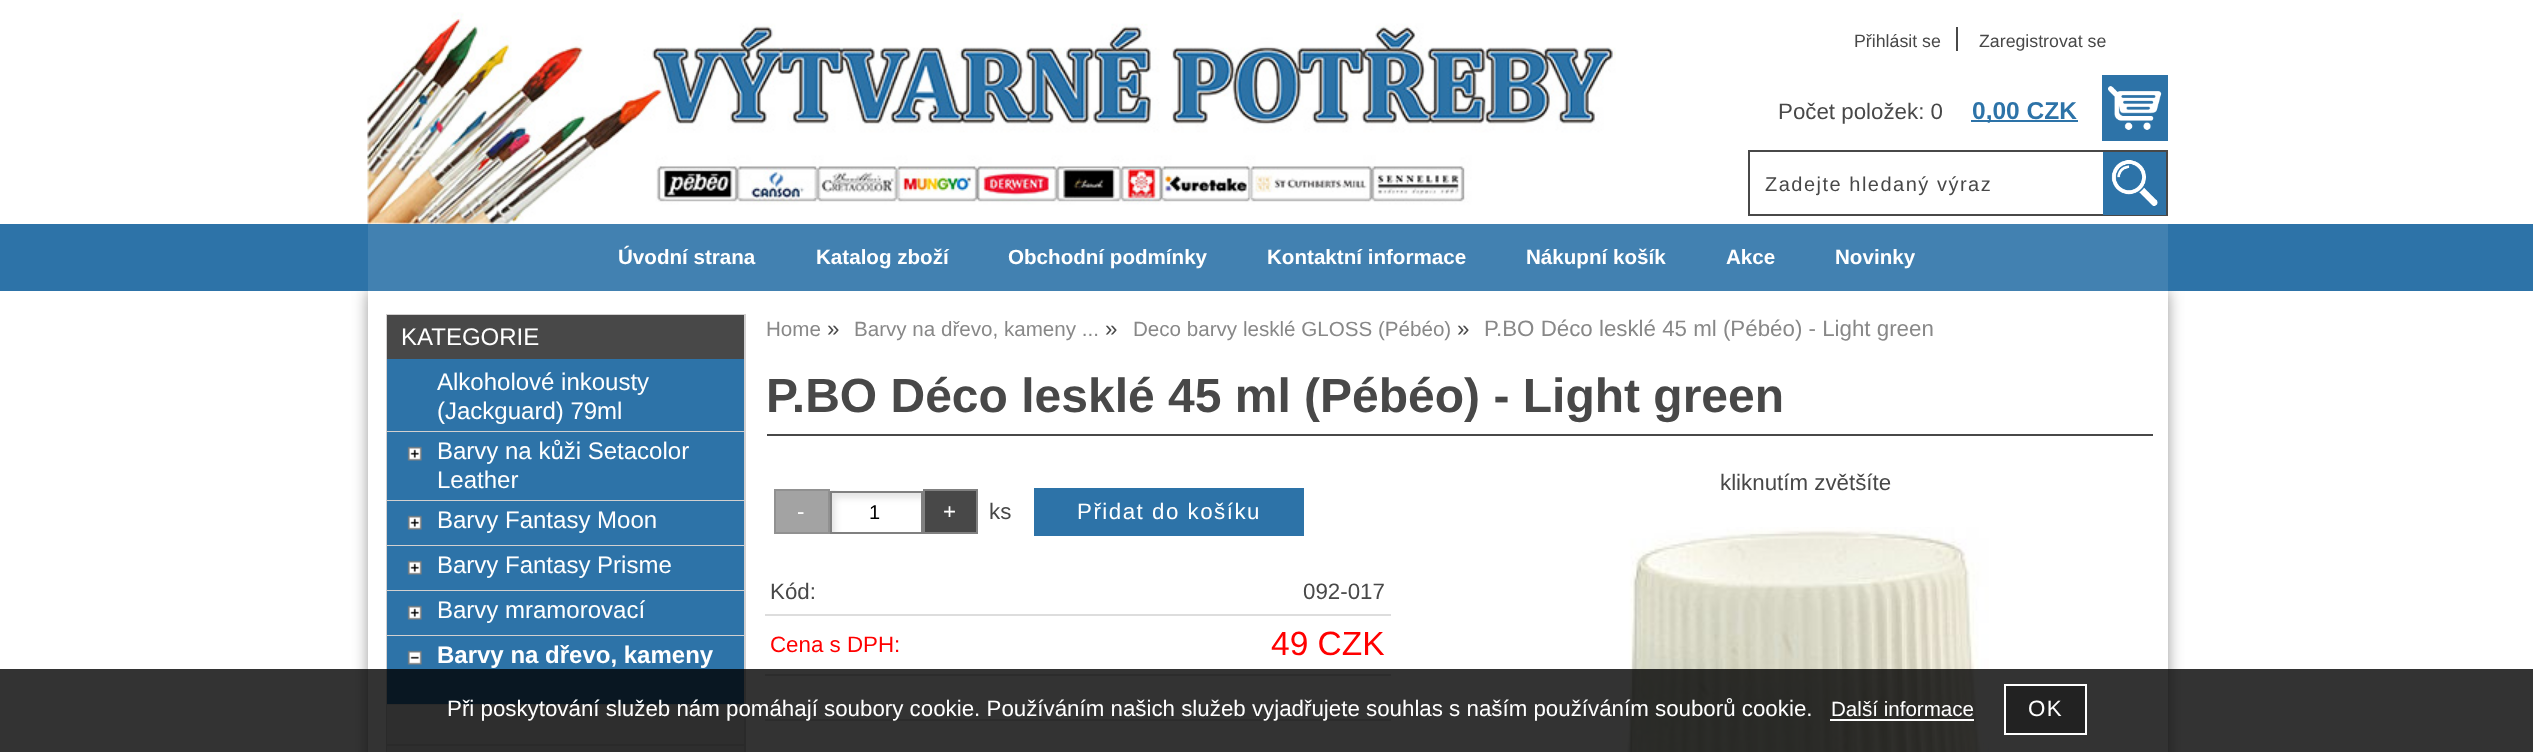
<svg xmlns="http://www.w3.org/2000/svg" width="2533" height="752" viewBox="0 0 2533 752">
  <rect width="100%" height="100%" fill="#fff"/>
  <image x="367" y="12" width="1249" height="212" href="img/1.png"/>
  <path d="M1956 27h2v24H1956z" fill="#484848"/>
  <path d="M1971 120h107v2H1971z" fill="#2d73a8"/>
  <path d="M2102 75h66v66H2102z" fill="#2d73a8"/>
  <image x="2108" y="86" width="54" height="44" href="img/2.png"/>
  <path d="M1749 151h418v64H1749z" fill="none" stroke="#484848" stroke-width="2"/>
  <path d="M2103 152h63v63H2103z" fill="#2d73a8"/>
  <image x="2111" y="160" width="47" height="46" href="img/3.png"/>
  <path d="M368 291h1800v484H368z" fill="#32323280" filter="blur(7.5px)"/>
  <path d="M0 224h2533v67H0z" fill="#2d73a8"/>
  <path d="M368 224h1800v67H368z" fill="#4281b1"/>
  <path d="M368 291h1800v461H368z" fill="#fff"/>
  <path d="M387 315h358v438H387z" fill="none" stroke="#d2d0d0" stroke-width="2"/>
  <path d="M387 315h357v44H387z" fill="#484848"/>
  <path d="M387 359h357v72H387z" fill="#2d73a8"/>
  <path d="M387 431h357v1H387z" fill="#d2d0d0"/>
  <path d="M387 432h357v68H387z" fill="#2d73a8"/>
  <path d="M387 500h357v1H387z" fill="#d2d0d0"/>
  <image x="407" y="446" width="15" height="15" href="img/4.png"/>
  <path d="M387 501h357v44H387z" fill="#2d73a8"/>
  <path d="M387 545h357v1H387z" fill="#d2d0d0"/>
  <image x="407" y="515" width="15" height="15" href="img/4.png"/>
  <path d="M387 546h357v44H387z" fill="#2d73a8"/>
  <path d="M387 590h357v1H387z" fill="#d2d0d0"/>
  <image x="407" y="560" width="15" height="15" href="img/4.png"/>
  <path d="M387 591h357v44H387z" fill="#2d73a8"/>
  <path d="M387 635h357v1H387z" fill="#d2d0d0"/>
  <image x="407" y="605" width="15" height="15" href="img/4.png"/>
  <path d="M387 636h357v68H387z" fill="#2d73a8"/>
  <path d="M387 704h357v1H387z" fill="#d2d0d0"/>
  <image x="407" y="650" width="15" height="15" href="img/5.png"/>
  <path d="M387 705h357v39H387z" fill="#e6e6e6"/>
  <path d="M387 744h357v2H387z" fill="#d2d0d0"/>
  <path d="M387 746h357v6H387z" fill="#e6e6e6"/>
  <path d="M767 434h1386v2H767z" fill="#484848"/>
  <image x="1622" y="527" width="367" height="225" href="img/6.png"/>
  <image x="829" y="490" width="94" height="44" href="img/7.png"/>
  <path d="M774 489h56v45H774z" fill="#48484880"/>
  <path d="M775 490h54v43H775z" fill="none" stroke="#80808080" stroke-width="2"/>
  <path d="M831 492h91v41H831z" fill="none" stroke="#808080" stroke-width="2"/>
  <path d="M924 490h53v43H924z" fill="#484848" stroke="#808080" stroke-width="2"/>
  <path d="M1034 488h270v48H1034z" fill="#2d73a8"/>
  <path d="M765 614h626v2H765z" fill="#ddd"/>
  <path d="M765 674h626v2H765z" fill="#ddd"/>
  <path d="M765 719h626v2H765z" fill="#ddd"/>
  <path d="M0 669h2533v83H0z" fill="#000000cc"/>
  <path d="M1830 719h144v2H1830z" fill="#fff"/>
  <path d="M2005 685h81v49H2005z" fill="#222" stroke="#fff" stroke-width="2"/>
  <g font-family="Liberation Sans" font-size="17.75" fill="#484848">
    <text x="1854" y="47">Přihlásit se</text>
    <text x="1979" y="47">Zaregistrovat se</text>
  </g>
  <text x="1778" y="119" font-family="Liberation Sans" font-size="22.32" fill="#484848">Počet položek: 0</text>
  <text x="1972" y="119" font-family="Liberation Sans" font-size="24.5" font-weight="bold" fill="#2d73a8">0,00 CZK</text>
  <text x="1765" y="191" font-family="Liberation Sans" font-size="20" letter-spacing="1.5" fill="#484848">Zadejte hledaný výraz</text>
  <g font-family="Liberation Sans" font-size="20.6" font-weight="bold" fill="#fff">
    <text x="618" y="264">Úvodní strana</text>
    <text x="816" y="264">Katalog zboží</text>
    <text x="1008" y="264">Obchodní podmínky</text>
    <text x="1267" y="264">Kontaktní informace</text>
    <text x="1526" y="264">Nákupní košík</text>
    <text x="1726" y="264">Akce</text>
    <text x="1835" y="264">Novinky</text>
  </g>
  <g font-family="Liberation Sans" font-size="24" fill="#fff">
    <text x="401" y="345">KATEGORIE</text>
    <text x="437" y="390">Alkoholové inkousty</text>
    <text x="437" y="419">(Jackguard) 79ml</text>
    <text x="437" y="459">Barvy na kůži Setacolor</text>
    <text x="437" y="488">Leather</text>
    <text x="437" y="528">Barvy Fantasy Moon</text>
    <text x="437" y="573">Barvy Fantasy Prisme</text>
    <text x="437" y="618">Barvy mramorovací</text>
  </g>
  <text x="437" y="663" font-family="Liberation Sans" font-size="24" font-weight="bold" fill="#fff">Barvy na dřevo, kameny</text>
  <text x="766" y="336" font-family="Liberation Sans" font-size="20.6" fill="#888">Home</text>
  <text x="827" y="336" font-family="Liberation Sans" font-size="22.32" fill="#484848">»</text>
  <text x="854" y="336" font-family="Liberation Sans" font-size="20.6" fill="#888">Barvy na dřevo, kameny ...</text>
  <text x="1105" y="336" font-family="Liberation Sans" font-size="22.32" fill="#484848">»</text>
  <text x="1133" y="336" font-family="Liberation Sans" font-size="20.6" fill="#888">Deco barvy lesklé GLOSS (Pébéo)</text>
  <text x="1457" y="336" font-family="Liberation Sans" font-size="22.32" fill="#484848">»</text>
  <text x="1484" y="336" font-family="Liberation Sans" font-size="22.32" fill="#888">P.BO Déco lesklé 45 ml (Pébéo) - Light green</text>
  <text x="766" y="412" font-family="Liberation Sans" font-size="48" font-weight="bold" fill="#484848">P.BO Déco lesklé 45 ml (Pébéo) - Light green</text>
  <text x="1720" y="490" font-family="Liberation Sans" font-size="22.32" fill="#484848">kliknutím zvětšíte</text>
  <text x="797" y="519" font-family="Liberation Sans" font-size="22.32" letter-spacing="1.5" fill="#fff">-</text>
  <text x="869" y="519" font-family="Liberation Sans" font-size="20" letter-spacing="1.5" fill="#000">1</text>
  <text x="943" y="519" font-family="Liberation Sans" font-size="22.32" letter-spacing="1.5" fill="#fff">+</text>
  <text x="989" y="519" font-family="Liberation Sans" font-size="22.32" fill="#484848">ks</text>
  <text x="1077" y="519" font-family="Liberation Sans" font-size="22.32" letter-spacing="1.5" fill="#fff">Přidat do košíku</text>
  <g font-family="Liberation Sans" font-size="22.32" fill="#484848">
    <text x="770" y="599">Kód:</text>
    <text x="1303" y="599">092-017</text>
  </g>
  <text x="770" y="652" font-family="Liberation Sans" font-size="22.32" fill="#f00">Cena s DPH:</text>
  <text x="1271" y="655" font-family="Liberation Sans" font-size="33.5" fill="#f00">49 CZK</text>
  <text x="447" y="716" font-family="Liberation Sans" font-size="22.32" fill="#fff">Při poskytování služeb nám pomáhají soubory cookie. Používáním našich služeb vyjadřujete souhlas s naším používáním souborů cookie.</text>
  <text x="1831" y="716" font-family="Liberation Sans" font-size="20.6" fill="#fff">Další informace</text>
  <text x="2028" y="716" font-family="Liberation Sans" font-size="22.32" letter-spacing="1.5" fill="#fff">OK</text>
</svg>
